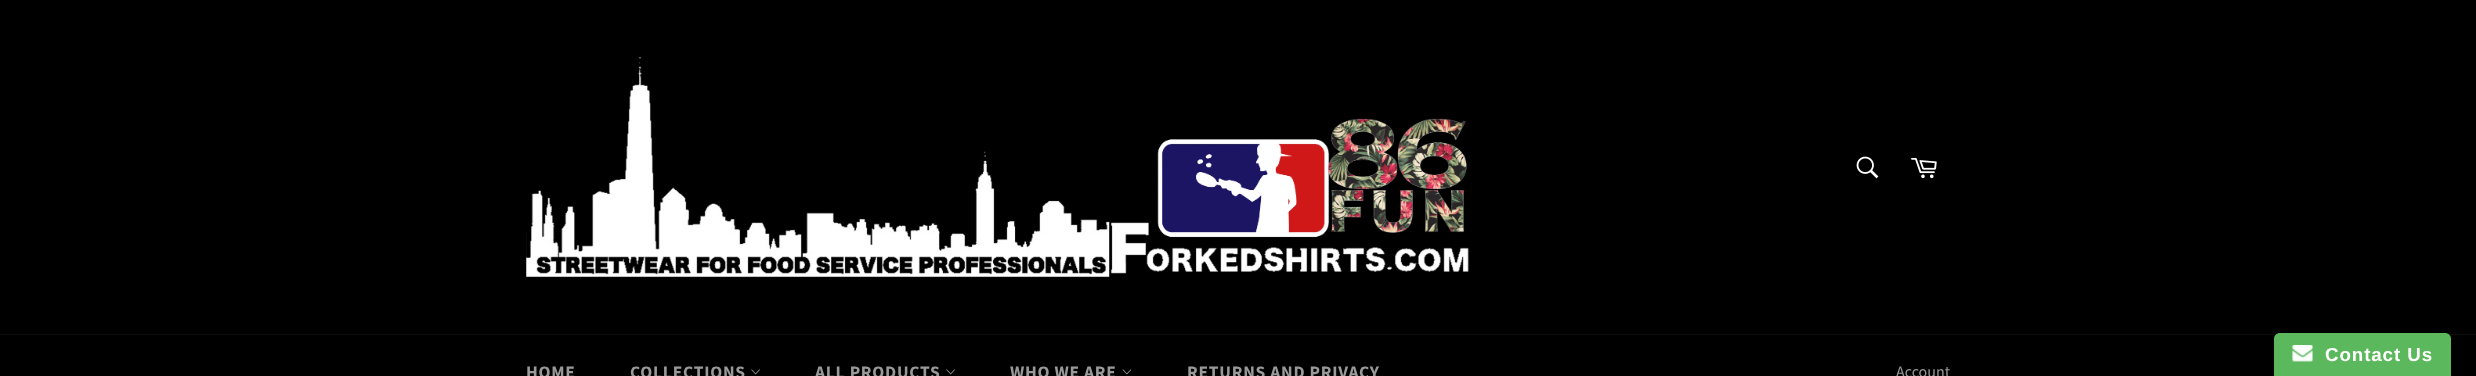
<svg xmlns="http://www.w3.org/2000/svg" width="2476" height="376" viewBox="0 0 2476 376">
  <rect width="100%" height="100%" fill="#000"/>
  <path d="M0 334h2476v1H0z" fill="#0d0d0d"/>
  <path d="M2280 333H2445C2448.5 333 2451 335.5 2451 339V376H2274V339C2274 335.5 2276.5 333 2280 333Z" fill="#5cb85c"/>
  <image x="2292" y="345" width="21" height="17" href="img/1.png"/>
  <image x="526" y="57" width="943" height="221" href="img/2.png"/>
  <image x="1856" y="156" width="23" height="23" href="img/3.png"/>
  <image x="1911" y="158" width="26" height="21" href="img/4.png"/>
  <image x="751" y="369" width="9" height="6" href="img/5.png"/>
  <image x="946" y="369" width="9" height="6" href="img/5.png"/>
  <image x="1122" y="369" width="10" height="6" href="img/6.png"/>
  <text x="2325" y="361" font-family="Liberation Sans" font-size="18.75" font-weight="bold" letter-spacing="0.9" fill="#fff">Contact Us</text>
  <g font-family="Source Sans Pro" font-size="17.5" font-weight="bold" letter-spacing="0.75" fill="#999">
    <text x="526" y="378">HOME</text>
    <text x="630" y="378">COLLECTIONS</text>
    <text x="815" y="378">ALL PRODUCTS</text>
    <text x="1010" y="378">WHO WE ARE</text>
    <text x="1187" y="378">RETURNS AND PRIVACY</text>
  </g>
  <text x="1896" y="377" font-family="Source Sans Pro" font-size="16" fill="#999">Account</text>
</svg>
